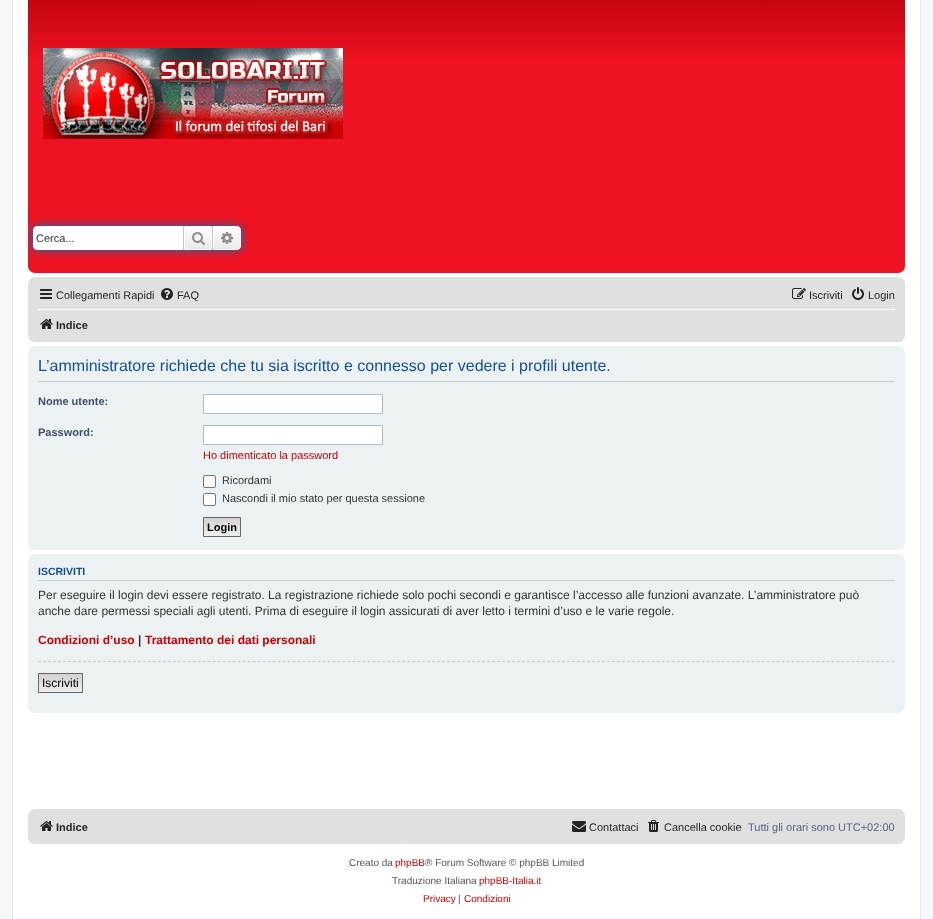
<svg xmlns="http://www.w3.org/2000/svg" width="933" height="919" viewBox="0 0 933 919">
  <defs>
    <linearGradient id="g1" gradientUnits="userSpaceOnUse" x1="467" y1="-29" x2="467" y2="273"><stop offset="0" stop-color="#ff696d"/><stop offset="0.01" stop-color="#b20009"/><stop offset="0.3" stop-color="#ee1222"/><stop offset="1" stop-color="#ee1222"/></linearGradient>
    <linearGradient id="g2" gradientUnits="userSpaceOnUse" x1="198" y1="226" x2="198" y2="250"><stop offset="0" stop-color="#fff"/><stop offset="1" stop-color="#e9e9e9"/></linearGradient>
    <linearGradient id="g3" gradientUnits="userSpaceOnUse" x1="227" y1="226" x2="227" y2="250"><stop offset="0" stop-color="#fff"/><stop offset="1" stop-color="#e9e9e9"/></linearGradient>
    <linearGradient id="g4" gradientUnits="userSpaceOnUse" x1="222" y1="518" x2="222" y2="536"><stop offset="0" stop-color="#d2d2d2"/><stop offset="1" stop-color="#efefef"/></linearGradient>
    <linearGradient id="g5" gradientUnits="userSpaceOnUse" x1="61" y1="674" x2="61" y2="692"><stop offset="0" stop-color="#d2d2d2"/><stop offset="1" stop-color="#efefef"/></linearGradient>
  </defs>
  <rect width="100%" height="100%" fill="#f5f7fa"/>
  <path d="M12.5 -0.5h908v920H12.5z" fill="#fff" stroke="#e6e9ed"/>
  <rect x="28" y="-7" width="877" height="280" rx="7" fill="url(#g1)"/>
  <image x="43" y="48" width="300" height="91" href="img/1.png"/>
  <rect x="33" y="226" width="208" height="24" rx="4" fill="#0075b0" filter="blur(5px)"/>
  <path d="M37 226H183V250H37C35 250 33 248 33 246V230C33 228 35 226 37 226Z" fill="#fff"/>
  <path d="M185 227h26v22H185z" fill="url(#g2)"/>
  <path d="M184.5 226.5h27v23H184.5z" fill="none" stroke="#fff"/>
  <path d="M212 226h1v24H212z" fill="#c7c3bf"/>
  <path d="M183 226h1v24H183z" fill="#c7c3bf"/>
  <image x="192" y="232" width="13" height="13" href="img/2.png"/>
  <path d="M213.5 226.5H237C239 226.5 240.5 228 240.5 230V246C240.5 248 239 249.5 237 249.5H213.5Z" fill="url(#g3)" stroke="#fff"/>
  <image x="221" y="232" width="12" height="12" href="img/3.png"/>
  <rect x="28" y="277" width="877" height="65" rx="7" fill="#e0e0e0"/>
  <image x="40" y="289" width="12" height="10" href="img/4.png"/>
  <image x="161" y="288" width="12" height="12" href="img/5.png"/>
  <image x="792" y="288" width="14" height="11" href="img/6.png"/>
  <image x="852" y="287" width="12" height="13" href="img/7.png"/>
  <path d="M38 309h857v1H38z" fill="#fff"/>
  <image x="40" y="319" width="13" height="10" href="img/8.png"/>
  <rect x="28" y="346" width="877" height="204" rx="7" fill="#ecf1f3"/>
  <path d="M38 381h857v1H38z" fill="#ccc"/>
  <path d="M203.5 394.5h179v19H203.5z" fill="#fff" stroke="#b4bac0"/>
  <path d="M203.5 425.5h179v19H203.5z" fill="#fff" stroke="#b4bac0"/>
  <rect x="203.5" y="475.5" width="12" height="12" rx="1.5" fill="#fff" stroke="#767676"/>
  <rect x="203.5" y="493.5" width="12" height="12" rx="1.5" fill="#fff" stroke="#767676"/>
  <path d="M204 518h36v18H204z" fill="url(#g4)"/>
  <path d="M203.5 517.5h37v19H203.5z" fill="none" stroke="#666"/>
  <rect x="28" y="554" width="877" height="159" rx="7" fill="#ecf1f3"/>
  <path d="M38 580h857v1H38z" fill="#ccc"/>
  <path d="M38 661.5H895" fill="none" stroke="#ccc" stroke-dasharray="3 1.99"/>
  <path d="M39 674h43v18H39z" fill="url(#g5)"/>
  <path d="M38.5 673.5h44v19H38.5z" fill="none" stroke="#666"/>
  <rect x="28" y="809" width="877" height="35" rx="7" fill="#e0e0e0"/>
  <image x="40" y="821" width="13" height="10" href="img/8.png"/>
  <image x="572" y="821" width="14" height="11" href="img/9.png"/>
  <image x="648" y="820" width="11" height="12" href="img/10.png"/>
  <text x="36" y="242" font-family="Liberation Sans" font-size="11" fill="#333">Cerca...</text>
  <g font-family="Liberation Sans" font-size="11" fill="#242424">
    <text x="56" y="299">Collegamenti Rapidi</text>
    <text x="177" y="299">FAQ</text>
    <text x="809" y="299">Iscriviti</text>
    <text x="868" y="299">Login</text>
  </g>
  <text x="56" y="329" font-family="Liberation Sans" font-size="11" font-weight="bold" fill="#242424">Indice</text>
  <text x="38" y="371" font-family="Liberation Sans" font-size="16" fill="#115098">L’amministratore richiede che tu sia iscritto e connesso per vedere i profili utente.</text>
  <g font-family="Liberation Sans" font-size="11" font-weight="bold" fill="#425067">
    <text x="38" y="405">Nome utente:</text>
    <text x="38" y="436">Password:</text>
  </g>
  <text x="203" y="459" font-family="Liberation Sans" font-size="11" fill="#c00">Ho dimenticato la password</text>
  <g font-family="Liberation Sans" font-size="11" fill="#333">
    <text x="222" y="484">Ricordami</text>
    <text x="222" y="502">Nascondi il mio stato per questa sessione</text>
  </g>
  <text x="207" y="531" font-family="Liberation Sans" font-size="11" font-weight="bold" fill="#000">Login</text>
  <text x="38" y="575" font-family="Liberation Sans" font-size="10.5" font-weight="bold" fill="#115098">ISCRIVITI</text>
  <g font-family="Liberation Sans" font-size="12" fill="#333">
    <text x="38" y="599">Per eseguire il login devi essere registrato. La registrazione richiede solo pochi secondi e garantisce l’accesso alle funzioni avanzate. L’amministratore può</text>
    <text x="38" y="615">anche dare permessi speciali agli utenti. Prima di eseguire il login assicurati di aver letto i termini d’uso e le varie regole.</text>
  </g>
  <text x="38" y="644" font-family="Liberation Sans" font-size="12" font-weight="bold" fill="#c00">Condizioni d’uso</text>
  <text x="138" y="644" font-family="Liberation Sans" font-size="12" font-weight="bold" fill="#333">|</text>
  <text x="145" y="644" font-family="Liberation Sans" font-size="12" font-weight="bold" fill="#c00">Trattamento dei dati personali</text>
  <text x="42" y="687" font-family="Liberation Sans" font-size="12" fill="#000">Iscriviti</text>
  <text x="56" y="831" font-family="Liberation Sans" font-size="11" font-weight="bold" fill="#242424">Indice</text>
  <g font-family="Liberation Sans" font-size="11" fill="#242424">
    <text x="589" y="831">Contattaci</text>
    <text x="664" y="831">Cancella cookie</text>
  </g>
  <text x="748" y="831" font-family="Liberation Sans" font-size="11" fill="#536482">Tutti gli orari sono UTC+02:00</text>
  <text x="349" y="866" font-family="Liberation Sans" font-size="10" fill="#555">Creato da</text>
  <text x="395" y="866" font-family="Liberation Sans" font-size="10" fill="#c00">phpBB</text>
  <g font-family="Liberation Sans" font-size="10" fill="#555">
    <text x="425" y="866">® Forum Software © phpBB Limited</text>
    <text x="392" y="884">Traduzione Italiana</text>
  </g>
  <g font-family="Liberation Sans" font-size="10" fill="#c00">
    <text x="479" y="884">phpBB-Italia.it</text>
    <text x="423" y="902">Privacy</text>
  </g>
  <text x="458" y="902" font-family="Liberation Sans" font-size="10" fill="#555">|</text>
  <text x="464" y="902" font-family="Liberation Sans" font-size="10" fill="#c00">Condizioni</text>
</svg>
